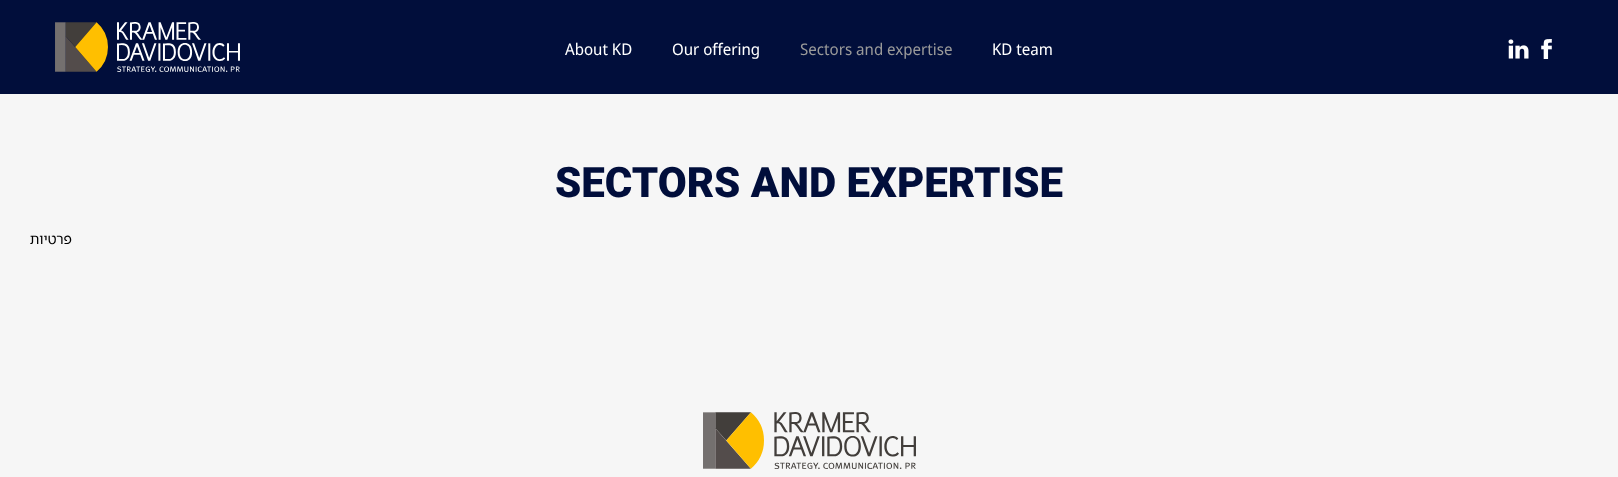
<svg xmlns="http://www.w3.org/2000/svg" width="1618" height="477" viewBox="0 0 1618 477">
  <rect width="100%" height="100%" fill="#f6f6f6"/>
  <path d="M0 0h1618v94H0z" fill="#010e3b"/>
  <image x="55" y="22" width="185" height="50" href="img/1.png"/>
  <image x="1508" y="39" width="21" height="20" href="img/2.png"/>
  <image x="1541" y="39" width="11" height="20" href="img/3.png"/>
  <image x="703" y="412" width="213" height="57" href="img/4.png"/>
  <g font-family="Noto Sans Display" font-size="16" fill="#fff">
    <text x="565" y="55">About KD</text>
    <text x="672" y="55">Our offering</text>
  </g>
  <text x="800" y="55" font-family="Noto Sans Display" font-size="16" fill="#999">Sectors and expertise</text>
  <text x="992" y="55" font-family="Noto Sans Display" font-size="16" fill="#fff">KD team</text>
  <text x="555" y="197" font-family="Roboto" font-size="42" font-weight="900" fill="#010e3b">SECTORS AND EXPERTISE</text>
  <text x="72" y="244" font-family="Noto Sans Hebrew" font-size="14" direction="rtl" fill="#000">פרטיות</text>
</svg>
